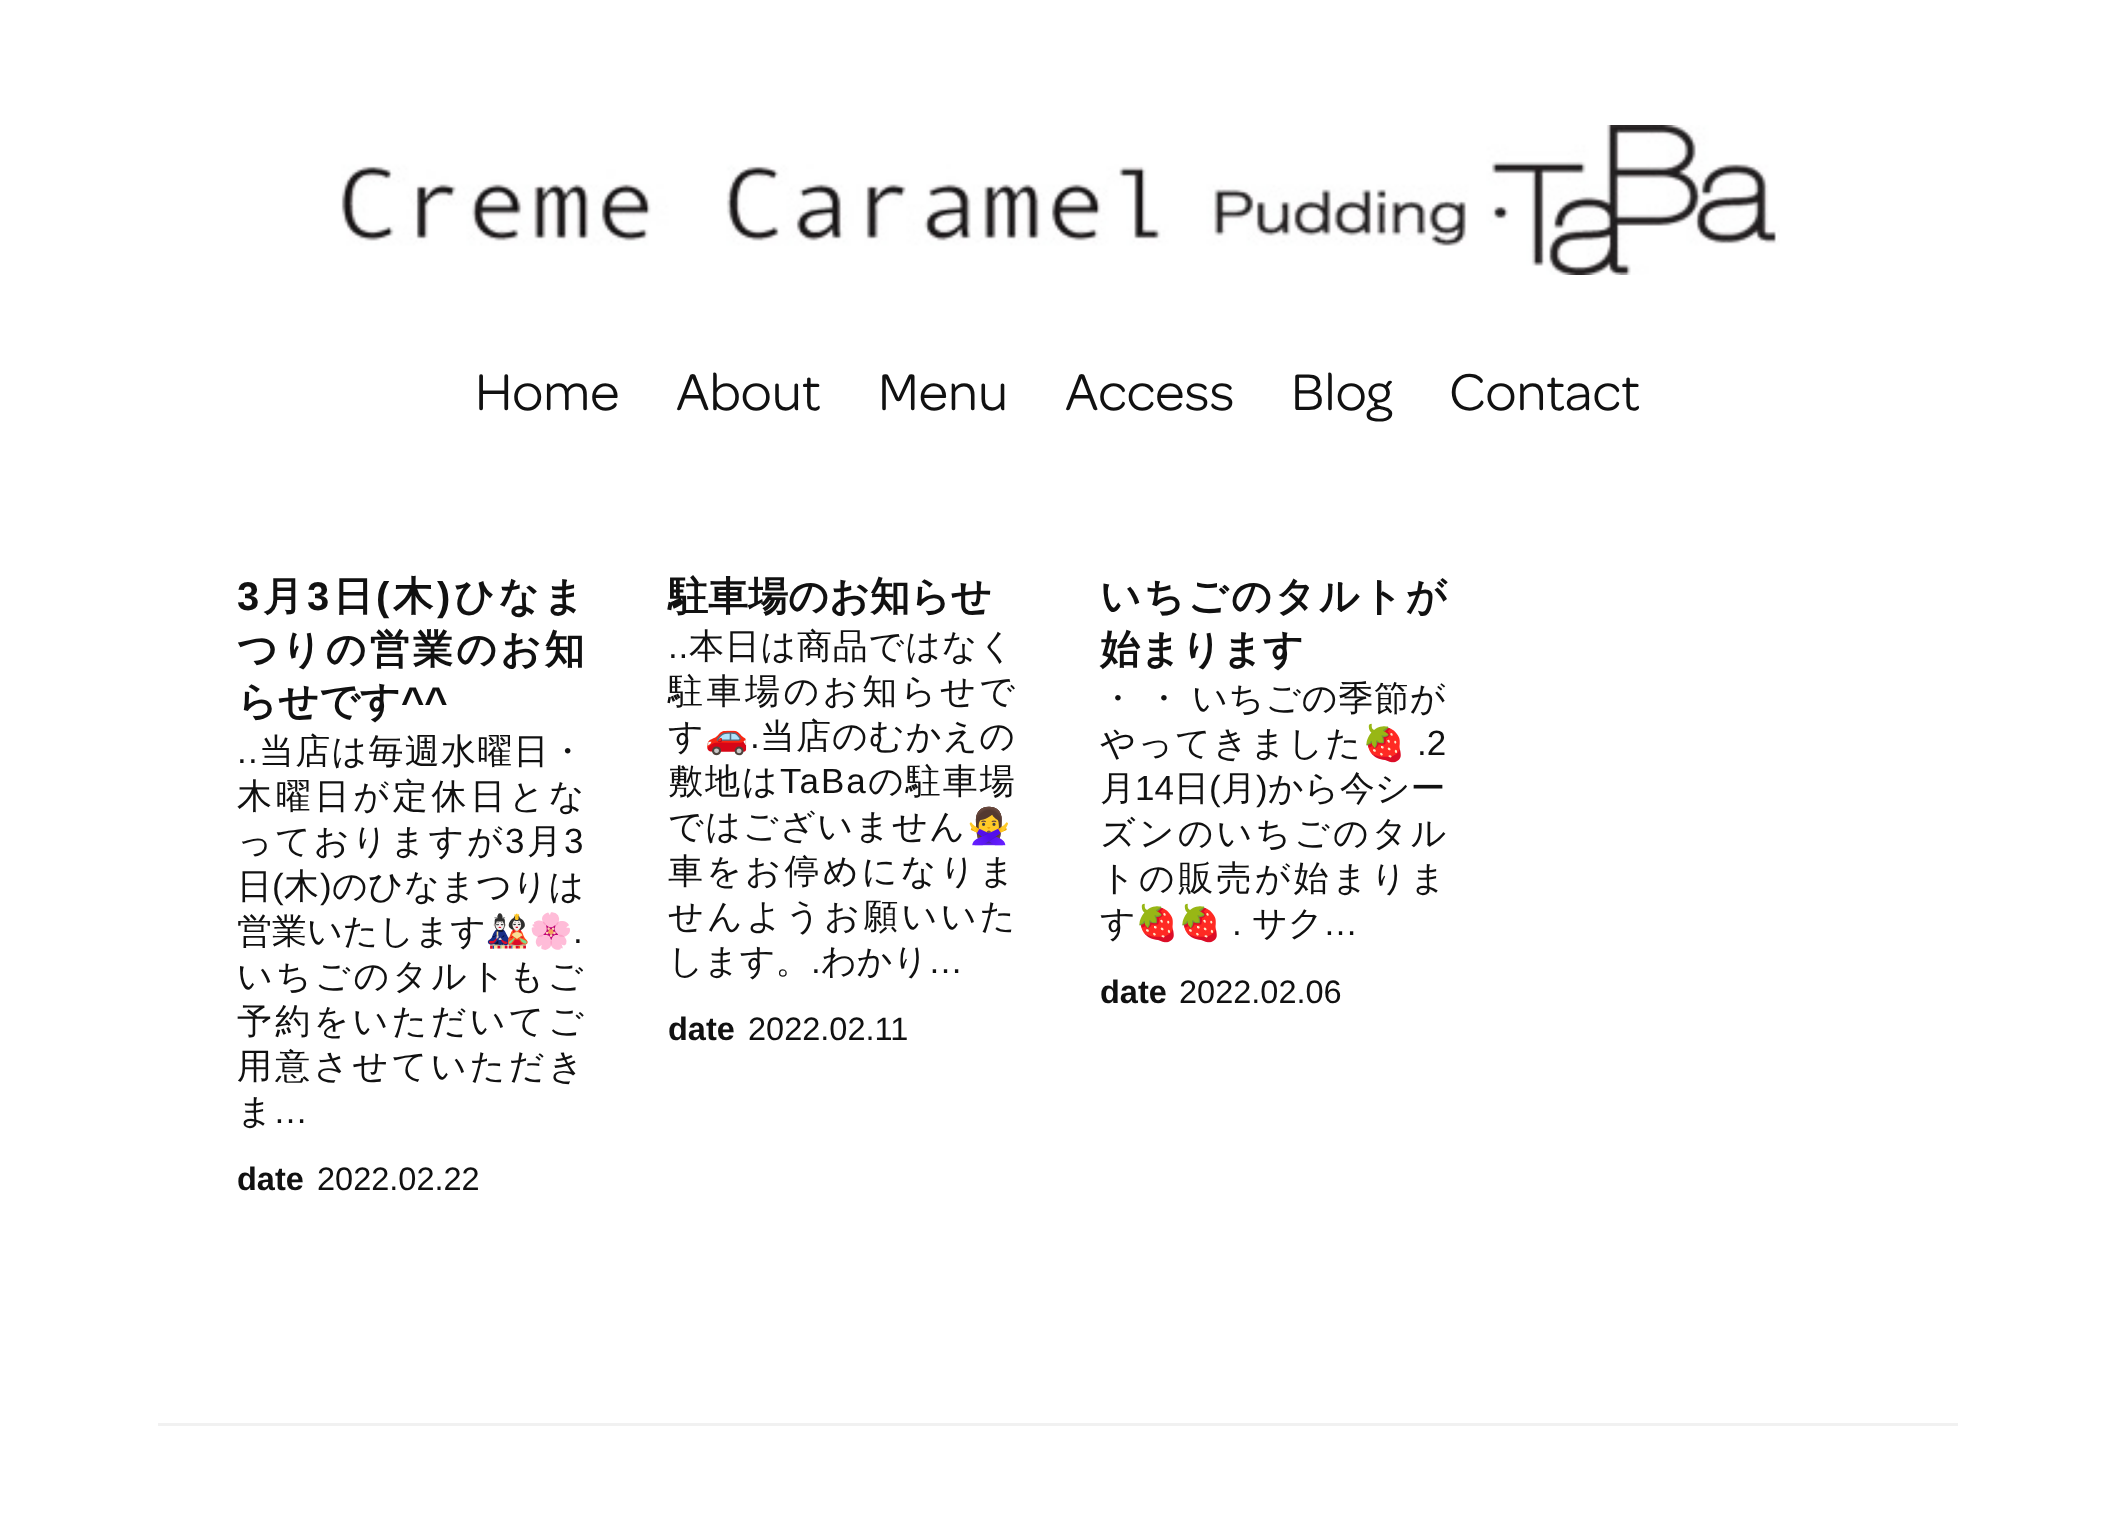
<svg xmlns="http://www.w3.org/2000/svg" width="2113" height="1521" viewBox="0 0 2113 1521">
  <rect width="100%" height="100%" fill="#fff"/>
  <image x="341" y="125" width="1439" height="150" href="img/1.png"/>
  <path d="M158 1423h1800v3H158z" fill="#f1f1f1"/>
  <g font-family="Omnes" font-size="55" fill="#111">
    <text x="475" y="410">Home</text>
    <text x="676" y="410">About</text>
    <text x="878" y="410">Menu</text>
    <text x="1065" y="410">Access</text>
    <text x="1291" y="410">Blog</text>
    <text x="1449" y="410">Contact</text>
  </g>
  <text x="237" y="610" font-family="Liberation Sans" font-size="40" font-weight="bold" letter-spacing="3.5" fill="#111">3</text>
  <text x="263" y="610" font-family="WenQuanYi Zen Hei" font-size="40" font-weight="bold" letter-spacing="3.5" fill="#111">月</text>
  <text x="307" y="610" font-family="Liberation Sans" font-size="40" font-weight="bold" letter-spacing="3.5" fill="#111">3</text>
  <text x="333" y="610" font-family="WenQuanYi Zen Hei" font-size="40" font-weight="bold" letter-spacing="3.5" fill="#111">日</text>
  <text x="376" y="610" font-family="Liberation Sans" font-size="40" font-weight="bold" letter-spacing="3.5" fill="#111">(</text>
  <text x="393" y="610" font-family="WenQuanYi Zen Hei" font-size="40" font-weight="bold" letter-spacing="3.5" fill="#111">木</text>
  <text x="437" y="610" font-family="Liberation Sans" font-size="40" font-weight="bold" letter-spacing="3.5" fill="#111">)</text>
  <text x="454" y="610" font-family="WenQuanYi Zen Hei" font-size="40" font-weight="bold" letter-spacing="3.5" fill="#111">ひなま</text>
  <text x="237" y="663" font-family="WenQuanYi Zen Hei" font-size="40" font-weight="bold" letter-spacing="3.25" fill="#111">つりの営業のお知</text>
  <text x="237" y="715" font-family="WenQuanYi Zen Hei" font-size="40" font-weight="bold" fill="#111">らせです</text>
  <text x="401" y="715" font-family="Liberation Sans" font-size="40" font-weight="bold" fill="#111">^^</text>
  <text x="237" y="763" font-family="Liberation Sans" font-size="35" letter-spacing="1.25" fill="#111">..</text>
  <text x="259" y="763" font-family="WenQuanYi Zen Hei" font-size="35" font-weight="500" letter-spacing="1.25" fill="#111">当店は毎週水曜日・</text>
  <text x="237" y="808" font-family="WenQuanYi Zen Hei" font-size="35" font-weight="500" letter-spacing="3.75" fill="#111">木曜日が定休日とな</text>
  <text x="237" y="853" font-family="WenQuanYi Zen Hei" font-size="35" font-weight="500" letter-spacing="2.5" fill="#111">っておりますが</text>
  <text x="505" y="853" font-family="Liberation Sans" font-size="35" letter-spacing="2.5" fill="#111">3</text>
  <text x="527" y="853" font-family="WenQuanYi Zen Hei" font-size="35" font-weight="500" letter-spacing="2.5" fill="#111">月</text>
  <text x="564" y="853" font-family="Liberation Sans" font-size="35" letter-spacing="2.5" fill="#111">3</text>
  <text x="237" y="898" font-family="WenQuanYi Zen Hei" font-size="35" font-weight="500" letter-spacing="0.25" fill="#111">日</text>
  <text x="272" y="898" font-family="Liberation Sans" font-size="35" letter-spacing="0.25" fill="#111">(</text>
  <text x="284" y="898" font-family="WenQuanYi Zen Hei" font-size="35" font-weight="500" letter-spacing="0.25" fill="#111">木</text>
  <text x="320" y="898" font-family="Liberation Sans" font-size="35" letter-spacing="0.25" fill="#111">)</text>
  <text x="332" y="898" font-family="WenQuanYi Zen Hei" font-size="35" font-weight="500" letter-spacing="0.25" fill="#111">のひなまつりは</text>
  <text x="237" y="943" font-family="WenQuanYi Zen Hei" font-size="35" font-weight="500" fill="#111">営業いたします</text>
  <text x="486" y="943" font-family="Noto Color Emoji" font-size="35" fill="#111">🎎🌸</text>
  <text x="573" y="943" font-family="Liberation Sans" font-size="35" fill="#111">.</text>
  <text x="237" y="988" font-family="WenQuanYi Zen Hei" font-size="35" font-weight="500" letter-spacing="3" fill="#111">いちごのタルトもご</text>
  <g font-family="WenQuanYi Zen Hei" font-size="35" font-weight="500" letter-spacing="3.25" fill="#111">
    <text x="237" y="1033">予約をいただいてご</text>
    <text x="237" y="1078">用意させていただき</text>
  </g>
  <text x="237" y="1123" font-family="WenQuanYi Zen Hei" font-size="35" font-weight="500" fill="#111">ま</text>
  <text x="273" y="1123" font-family="Liberation Sans" font-size="35" fill="#111">…</text>
  <text x="237" y="1190" font-family="Liberation Sans" font-size="32.5" font-weight="bold" fill="#111">date</text>
  <text x="317" y="1190" font-family="Liberation Sans" font-size="32.5" fill="#111">2022.02.22</text>
  <text x="668" y="610" font-family="WenQuanYi Zen Hei" font-size="40" font-weight="bold" fill="#111">駐車場のお知らせ</text>
  <text x="668" y="658" font-family="Liberation Sans" font-size="35" letter-spacing="0.75" fill="#111">..</text>
  <text x="689" y="658" font-family="WenQuanYi Zen Hei" font-size="35" font-weight="500" letter-spacing="0.75" fill="#111">本日は商品ではなく</text>
  <text x="668" y="703" font-family="WenQuanYi Zen Hei" font-size="35" font-weight="500" letter-spacing="3.5" fill="#111">駐車場のお知らせで</text>
  <text x="668" y="748" font-family="WenQuanYi Zen Hei" font-size="35" font-weight="500" letter-spacing="1" fill="#111">す</text>
  <text x="705" y="748" font-family="Noto Color Emoji" font-size="35" letter-spacing="1" fill="#111">🚗</text>
  <text x="750" y="748" font-family="Liberation Sans" font-size="35" letter-spacing="1" fill="#111">.</text>
  <text x="760" y="748" font-family="WenQuanYi Zen Hei" font-size="35" font-weight="500" letter-spacing="1" fill="#111">当店のむかえの</text>
  <text x="668" y="793" font-family="WenQuanYi Zen Hei" font-size="35" font-weight="500" letter-spacing="2" fill="#111">敷地は</text>
  <text x="780" y="793" font-family="Liberation Sans" font-size="35" letter-spacing="2" fill="#111">TaBa</text>
  <text x="868" y="793" font-family="WenQuanYi Zen Hei" font-size="35" font-weight="500" letter-spacing="2" fill="#111">の駐車場</text>
  <text x="668" y="838" font-family="WenQuanYi Zen Hei" font-size="35" font-weight="500" letter-spacing="1.5" fill="#111">ではございません</text>
  <text x="967" y="838" font-family="Noto Color Emoji" font-size="35" letter-spacing="1.5" fill="#111">🙅‍♀️</text>
  <g font-family="WenQuanYi Zen Hei" font-size="35" font-weight="500" letter-spacing="3.25" fill="#111">
    <text x="668" y="883">車をお停めになりま</text>
    <text x="668" y="928">せんようお願いいた</text>
  </g>
  <text x="668" y="973" font-family="WenQuanYi Zen Hei" font-size="35" font-weight="500" fill="#111">します。</text>
  <text x="811" y="973" font-family="Liberation Sans" font-size="35" fill="#111">.</text>
  <text x="821" y="973" font-family="WenQuanYi Zen Hei" font-size="35" font-weight="500" fill="#111">わかり</text>
  <text x="928" y="973" font-family="Liberation Sans" font-size="35" fill="#111">…</text>
  <text x="668" y="1040" font-family="Liberation Sans" font-size="32.5" font-weight="bold" fill="#111">date</text>
  <text x="748" y="1040" font-family="Liberation Sans" font-size="32.5" fill="#111">2022.02.11</text>
  <text x="1100" y="610" font-family="WenQuanYi Zen Hei" font-size="40" font-weight="bold" letter-spacing="2.75" fill="#111">いちごのタルトが</text>
  <text x="1100" y="663" font-family="WenQuanYi Zen Hei" font-size="40" font-weight="bold" fill="#111">始まります</text>
  <g font-family="WenQuanYi Zen Hei" font-size="35" font-weight="500" fill="#111">
    <text x="1100" y="710">・</text>
    <text x="1146" y="710">・</text>
  </g>
  <text x="1192" y="710" font-family="WenQuanYi Zen Hei" font-size="35" font-weight="500" letter-spacing="0.75" fill="#111">いちごの季節が</text>
  <text x="1100" y="755" font-family="WenQuanYi Zen Hei" font-size="35" font-weight="500" letter-spacing="1.75" fill="#111">やってきました</text>
  <text x="1362" y="755" font-family="Noto Color Emoji" font-size="35" letter-spacing="1.75" fill="#111">🍓</text>
  <text x="1417" y="755" font-family="Liberation Sans" font-size="35" fill="#111">.2</text>
  <text x="1100" y="800" font-family="WenQuanYi Zen Hei" font-size="35" font-weight="500" fill="#111">月</text>
  <text x="1135" y="800" font-family="Liberation Sans" font-size="35" fill="#111">14</text>
  <text x="1174" y="800" font-family="WenQuanYi Zen Hei" font-size="35" font-weight="500" fill="#111">日</text>
  <text x="1209" y="800" font-family="Liberation Sans" font-size="35" fill="#111">(</text>
  <text x="1221" y="800" font-family="WenQuanYi Zen Hei" font-size="35" font-weight="500" fill="#111">月</text>
  <text x="1256" y="800" font-family="Liberation Sans" font-size="35" fill="#111">)</text>
  <text x="1268" y="800" font-family="WenQuanYi Zen Hei" font-size="35" font-weight="500" fill="#111">から今シー</text>
  <text x="1100" y="845" font-family="WenQuanYi Zen Hei" font-size="35" font-weight="500" letter-spacing="3" fill="#111">ズンのいちごのタル</text>
  <text x="1100" y="890" font-family="WenQuanYi Zen Hei" font-size="35" font-weight="500" letter-spacing="3.25" fill="#111">トの販売が始まりま</text>
  <text x="1100" y="935" font-family="WenQuanYi Zen Hei" font-size="35" font-weight="500" fill="#111">す</text>
  <text x="1135" y="935" font-family="Noto Color Emoji" font-size="35" fill="#111">🍓🍓</text>
  <text x="1232" y="935" font-family="Liberation Sans" font-size="35" fill="#111">.</text>
  <text x="1252" y="935" font-family="WenQuanYi Zen Hei" font-size="35" font-weight="500" fill="#111">サク</text>
  <text x="1323" y="935" font-family="Liberation Sans" font-size="35" fill="#111">…</text>
  <text x="1100" y="1003" font-family="Liberation Sans" font-size="32.5" font-weight="bold" fill="#111">date</text>
  <text x="1179" y="1003" font-family="Liberation Sans" font-size="32.5" fill="#111">2022.02.06</text>
</svg>
